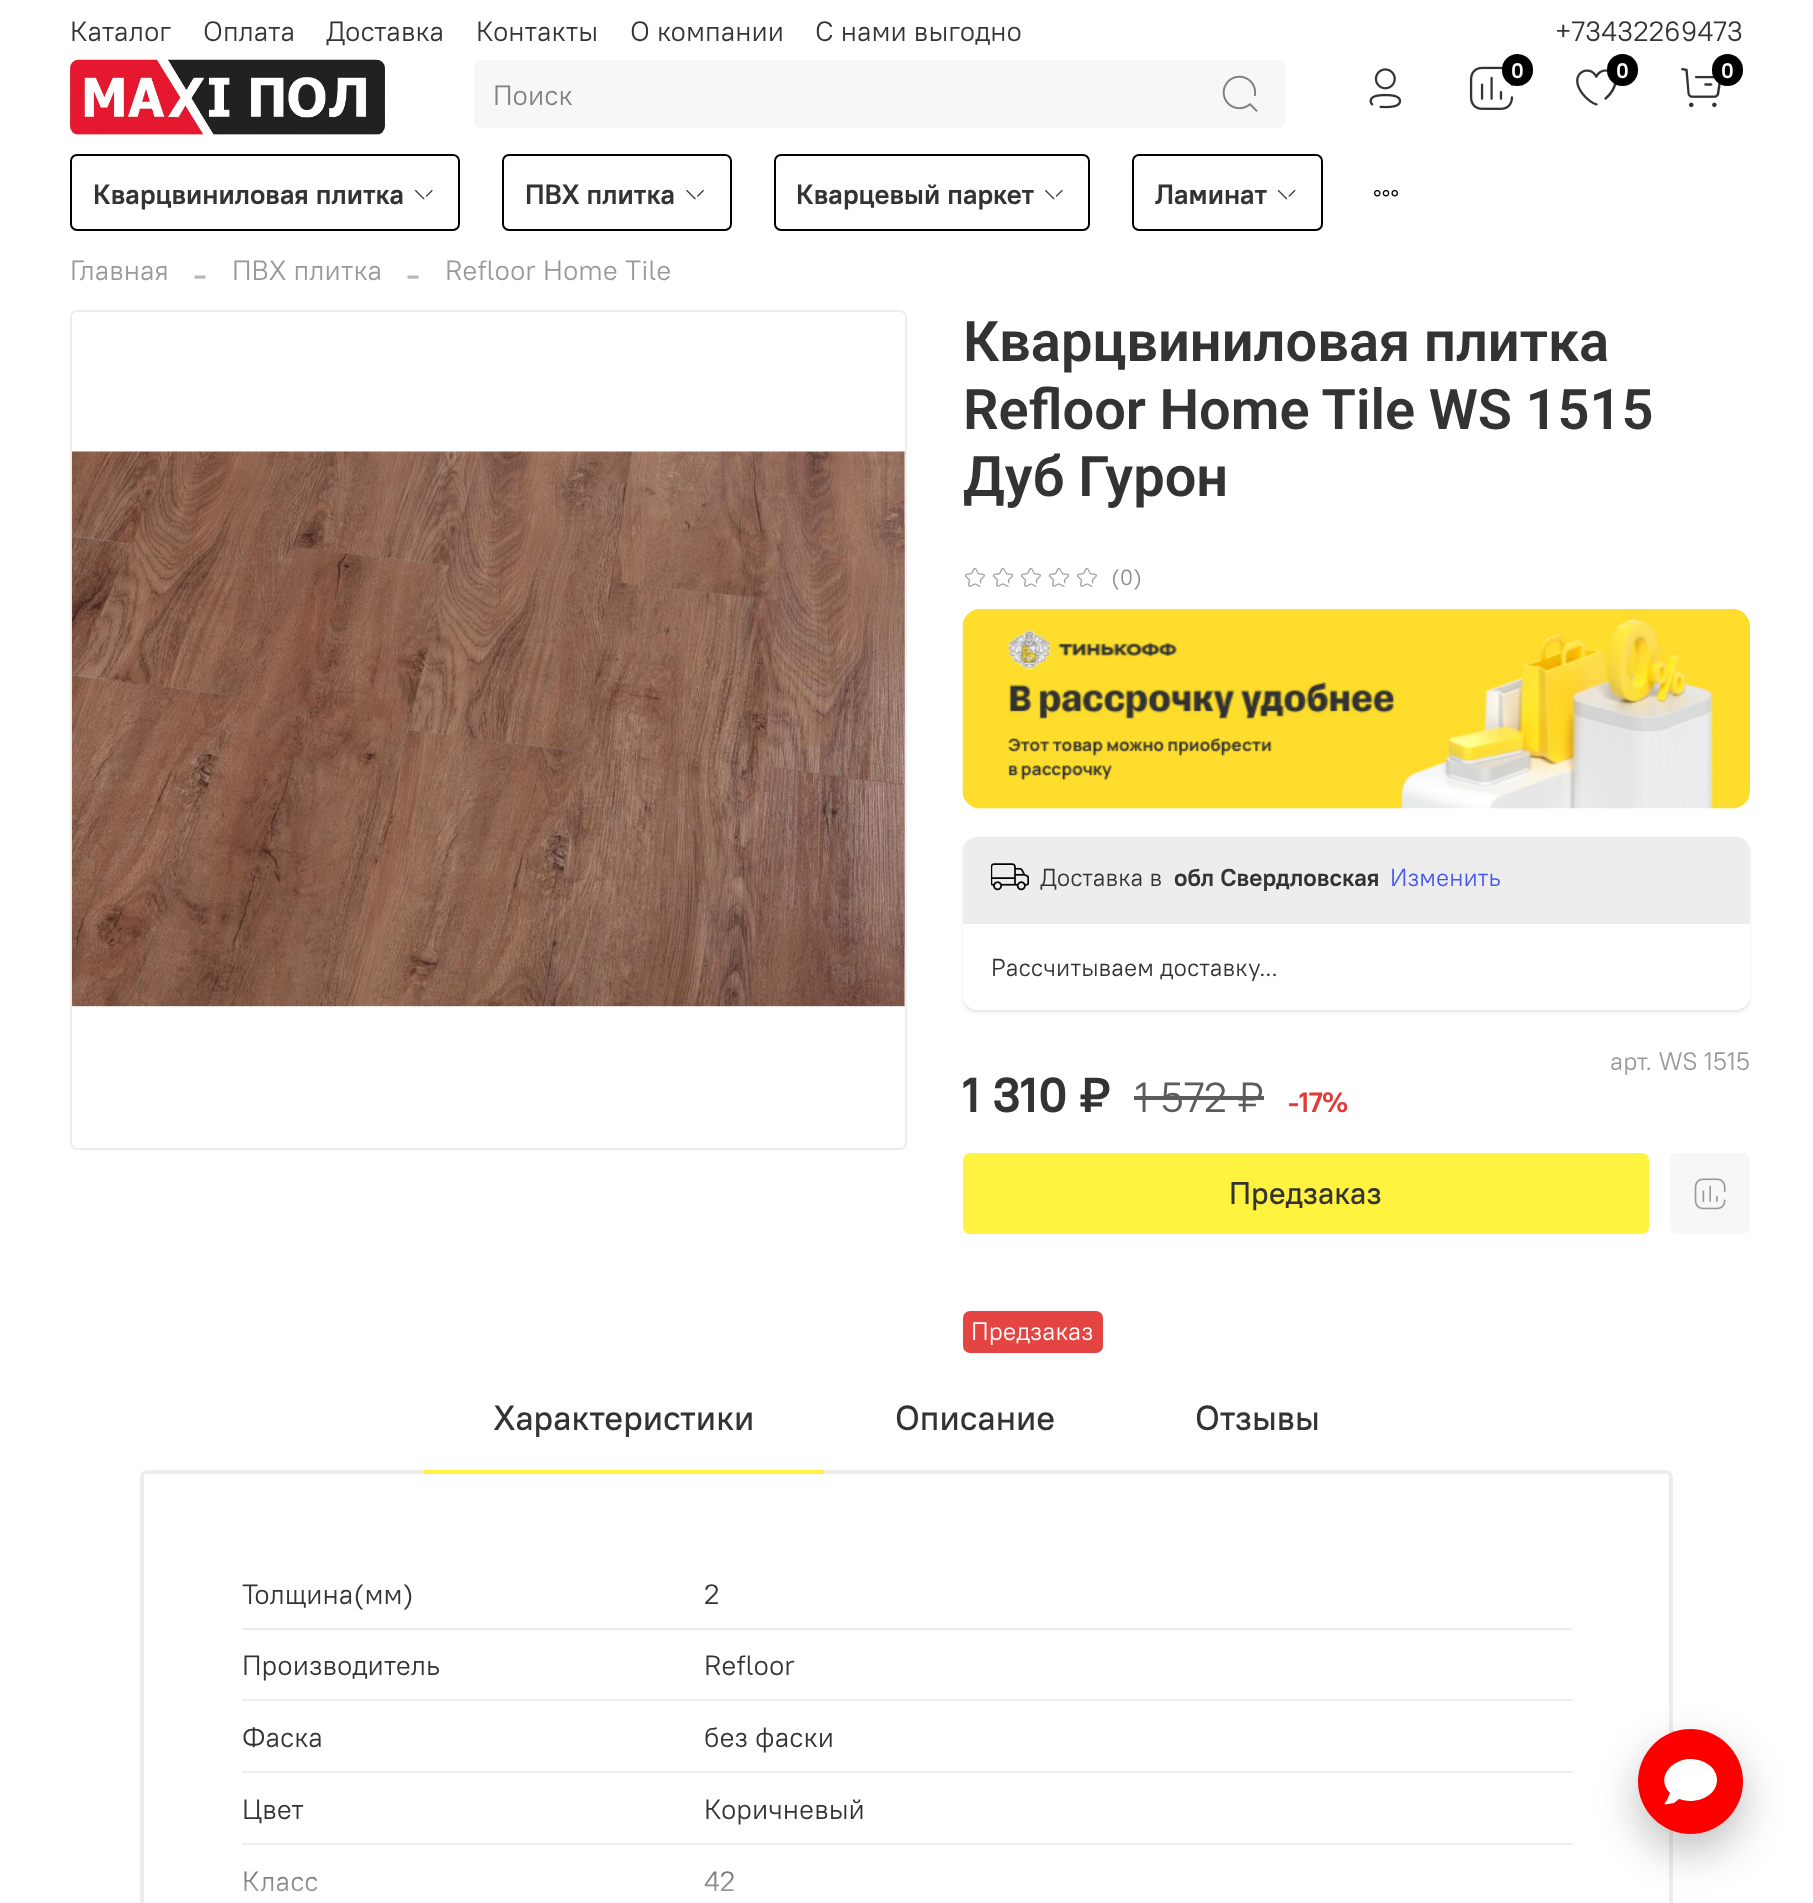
<svg xmlns="http://www.w3.org/2000/svg" width="1813" height="1903" viewBox="0 0 1813 1903">
  <defs>
    <clipPath id="clip1"><path d="M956 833H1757V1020H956ZM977 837H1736C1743.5 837 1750 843.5 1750 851V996C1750 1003.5 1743.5 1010 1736 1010H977C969.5 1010 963 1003.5 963 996V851C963 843.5 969.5 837 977 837Z" clip-rule="evenodd"/></clipPath>
    <clipPath id="clip2"><path d="M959 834H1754V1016H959ZM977 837H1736C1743.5 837 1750 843.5 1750 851V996C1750 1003.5 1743.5 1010 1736 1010H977C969.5 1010 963 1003.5 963 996V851C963 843.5 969.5 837 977 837Z" clip-rule="evenodd"/></clipPath>
    <linearGradient id="g1" gradientUnits="userSpaceOnUse" x1="907" y1="1838" x2="907" y2="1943"><stop offset="0" stop-color="#fff" stop-opacity="0"/><stop offset="1" stop-color="#fff"/></linearGradient>
  </defs>
  <rect width="100%" height="100%" fill="#fff"/>
  <image x="70" y="59" width="315" height="76" href="img/1.png"/>
  <image x="1369" y="68" width="33" height="41" href="img/2.png"/>
  <image x="1469" y="66" width="45" height="44" href="img/3.png"/>
  <rect x="1502" y="54" width="31" height="32" rx="15.5" fill="#000"/>
  <image x="1576" y="69" width="41" height="37" href="img/4.png"/>
  <rect x="1607" y="54" width="31" height="32" rx="15.5" fill="#000"/>
  <image x="1681" y="67" width="40" height="41" href="img/5.png"/>
  <rect x="1712" y="54" width="31" height="32" rx="15.5" fill="#000"/>
  <path d="M481 60H1197V128H481C477 128 474 125 474 121V67C474 63 477 60 481 60Z" fill="#f7f7f7"/>
  <path d="M481 60H1197V128H481C477 128 474 125 474 121V66C474 63 477 60 481 60ZM481 61H1197V126H481C478 126 476 124 476 121V66C476 64 478 61 481 61Z" fill="#f7f7f7" fill-rule="evenodd"/>
  <path d="M1197 60H1278C1282 60 1285 63 1285 67V121C1285 125 1282 128 1278 128H1197Z" fill="#f7f7f7"/>
  <image x="1222" y="75" width="36" height="37" href="img/6.png"/>
  <rect x="71" y="155" width="388" height="75" rx="6" fill="none" stroke="#000" stroke-width="2"/>
  <image x="415" y="190" width="18" height="10" href="img/7.png"/>
  <rect x="503" y="155" width="228" height="75" rx="6" fill="none" stroke="#000" stroke-width="2"/>
  <image x="686" y="190" width="18" height="10" href="img/8.png"/>
  <rect x="775" y="155" width="314" height="75" rx="6" fill="none" stroke="#000" stroke-width="2"/>
  <image x="1045" y="190" width="18" height="10" href="img/7.png"/>
  <rect x="1133" y="155" width="189" height="75" rx="6" fill="none" stroke="#000" stroke-width="2"/>
  <image x="1277" y="190" width="19" height="10" href="img/9.png"/>
  <image x="1374" y="189" width="24" height="8" href="img/10.png"/>
  <rect x="71" y="311" width="835" height="838" rx="6" fill="none" stroke="#ededed" stroke-width="2"/>
  <image x="72" y="451" width="833" height="556" href="img/11.png"/>
  <image x="964" y="568" width="21" height="19" href="img/12.png"/>
  <image x="992" y="568" width="21" height="19" href="img/12.png"/>
  <image x="1020" y="568" width="21" height="19" href="img/12.png"/>
  <image x="1048" y="568" width="21" height="19" href="img/12.png"/>
  <image x="1076" y="568" width="21" height="19" href="img/12.png"/>
  <image x="962" y="609" width="788" height="200" href="img/13.png"/>
  <g clip-path="url(#clip1)">
    <rect x="963" y="840" width="787" height="173" rx="14" fill="#0000000d" filter="blur(2px)"/>
  </g>
  <g clip-path="url(#clip2)">
    <rect x="963" y="838" width="787" height="174" rx="14" fill="#0000000d" filter="blur(1px)"/>
  </g>
  <path d="M977 837H1736C1743.5 837 1750 843.5 1750 851V924H963V851C963 843.5 969.5 837 977 837Z" fill="#ededed"/>
  <image x="991" y="863" width="38" height="28" href="img/14.png"/>
  <path d="M1134 1096h130v4H1134z" fill="#5c5c5c"/>
  <rect x="963" y="1153" width="686" height="81" rx="7" fill="#fff340"/>
  <rect x="1670" y="1153" width="80" height="81" rx="7" fill="#f7f7f7"/>
  <image x="1694" y="1178" width="32" height="32" href="img/15.png"/>
  <rect x="963" y="1311" width="140" height="42" rx="7" fill="#e44542"/>
  <rect x="142" y="1472" width="1529" height="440" rx="5" fill="none" stroke="#ededed" stroke-width="4"/>
  <path d="M424 1470h400v4H424z" fill="#fff340"/>
  <path d="M242 1628h1330v2H242z" fill="#ededed"/>
  <path d="M242 1699h1330v2H242z" fill="#ededed"/>
  <path d="M242 1771h1330v2H242z" fill="#ededed"/>
  <path d="M242 1843h1330v2H242z" fill="#ededed"/>
  <rect x="1638" y="1747" width="105" height="105" rx="52.5" fill="#00000040" filter="blur(22px)"/>
  <circle cx="1690.5" cy="1781.5" r="52.5" fill="#fc0000"/>
  <path d="M1690 1759C1672 1759 1655 1778 1670 1793L1667 1800C1665 1803 1662 1805 1668 1804L1674 1803L1679 1799C1683 1800 1687 1801 1690 1801C1705 1801 1717 1792 1717 1780C1717 1768 1705 1759 1690 1759Z" fill="#fff"/>
  <g font-family="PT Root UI" font-size="28" fill="#333">
    <text x="70" y="41">Каталог</text>
    <text x="203" y="41">Оплата</text>
    <text x="326" y="41">Доставка</text>
    <text x="476" y="41">Контакты</text>
    <text x="630" y="41">О компании</text>
    <text x="815" y="41">С нами выгодно</text>
    <text x="1555" y="41">+73432269473</text>
  </g>
  <g font-family="PT Root UI" font-size="21" font-weight="bold" fill="#fff">
    <text x="1511" y="78">0</text>
    <text x="1616" y="78">0</text>
    <text x="1721" y="78">0</text>
  </g>
  <text x="493" y="105" font-family="PT Root UI" font-size="28" fill="#808080">Поиск</text>
  <g font-family="PT Root UI" font-size="28" font-weight="bold" fill="#333">
    <text x="93" y="204">Кварцвиниловая плитка</text>
    <text x="525" y="204">ПВХ плитка</text>
    <text x="796" y="204">Кварцевый паркет</text>
    <text x="1155" y="204">Ламинат</text>
  </g>
  <text x="70" y="280" font-family="PT Root UI" font-size="28" fill="#999">Главная</text>
  <text x="193" y="287" font-family="Liberation Serif" font-size="42" fill="#b8b8b8">-</text>
  <text x="232" y="280" font-family="PT Root UI" font-size="28" fill="#999">ПВХ плитка</text>
  <text x="406" y="287" font-family="Liberation Serif" font-size="42" fill="#b8b8b8">-</text>
  <text x="445" y="280" font-family="PT Root UI" font-size="28" fill="#999">Refloor Home Tile</text>
  <g font-family="Roboto" font-size="56" font-weight="600" fill="#333">
    <text x="963" y="361">Кварцвиниловая плитка</text>
    <text x="963" y="429" word-spacing="-0.5">Refloor Home Tile WS 1515</text>
    <text x="963" y="496">Дуб Гурон</text>
  </g>
  <text x="1111" y="585" font-family="PT Root UI" font-size="22" fill="#8b8b8b">(0)</text>
  <text x="1040" y="886" font-family="PT Root UI" font-size="24.5" fill="#333">Доставка в</text>
  <text x="1174" y="886" font-family="PT Root UI" font-size="24.5" font-weight="bold" fill="#333">обл Свердловская</text>
  <text x="1390" y="886" font-family="PT Root UI" font-size="24.5" fill="#4657ef">Изменить</text>
  <text x="991" y="976" font-family="PT Root UI" font-size="24.5" fill="#333">Рассчитываем доставку...</text>
  <text x="1610" y="1070" font-family="PT Root UI" font-size="25.25" fill="#999">арт. WS 1515</text>
  <text x="963" y="1112" font-family="PT Root UI" font-size="49" font-weight="bold" fill="#333">1 310 ₽</text>
  <text x="1135" y="1112" font-family="PT Root UI" font-size="42" fill="#5c5c5c">1 572 ₽</text>
  <text x="1288" y="1112" font-family="PT Root UI" font-size="28" font-weight="bold" fill="#e53935">-17%</text>
  <text x="1229" y="1204" font-family="PT Root UI" font-size="31.5" font-weight="500" fill="#333">Предзаказ</text>
  <text x="971" y="1340" font-family="PT Root UI" font-size="25.25" fill="#fff">Предзаказ</text>
  <g font-family="PT Root UI" font-size="35" font-weight="500" fill="#333">
    <text x="493" y="1430">Характеристики</text>
    <text x="895" y="1430">Описание</text>
    <text x="1195" y="1430">Отзывы</text>
  </g>
  <g font-family="PT Root UI" font-size="28" fill="#333">
    <text x="242" y="1604">Толщина(мм)</text>
    <text x="704" y="1604">2</text>
    <text x="242" y="1675">Производитель</text>
    <text x="704" y="1675">Refloor</text>
    <text x="242" y="1747">Фаска</text>
    <text x="704" y="1747">без фаски</text>
    <text x="242" y="1819">Цвет</text>
    <text x="704" y="1819">Коричневый</text>
    <text x="242" y="1891">Класс</text>
    <text x="704" y="1891">42</text>
  </g>
  <path d="M244 1871h490v21H244z" fill="url(#g1)"/>
</svg>
